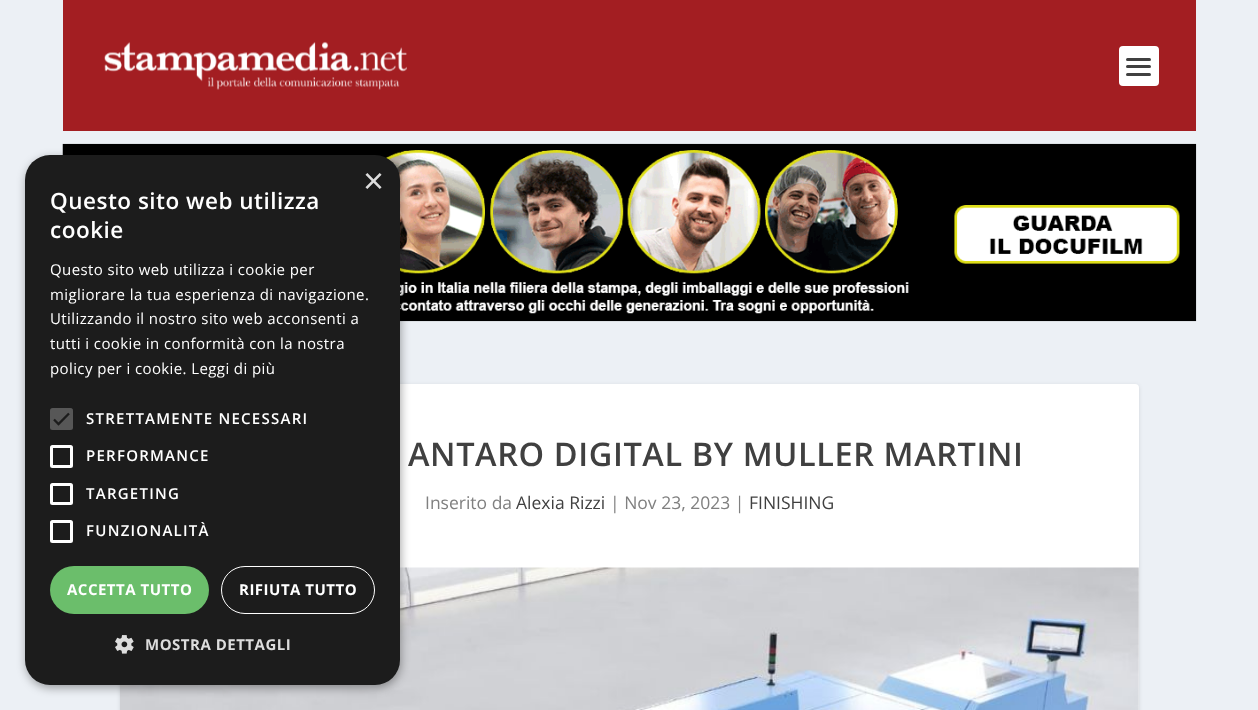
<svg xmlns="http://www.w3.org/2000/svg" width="1258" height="710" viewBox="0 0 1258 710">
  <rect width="100%" height="100%" fill="#ecf0f5"/>
  <image x="62" y="143" width="1135" height="179" href="img/3.png"/>
  <rect x="120" y="385" width="1019" height="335" rx="4" fill="#0000001a" filter="blur(2px)"/>
  <rect x="120" y="384" width="1019" height="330" rx="4" fill="#fff"/>
  <image x="120" y="567" width="1019" height="143" href="img/4.png"/>
  <rect x="26" y="158" width="375" height="530" rx="25" fill="#00000059" filter="blur(5px)"/>
  <rect x="25" y="155" width="375" height="530" rx="25" fill="#1c1c1c"/>
  <rect x="50" y="408" width="23" height="22" rx="2.5" fill="#575757"/>
  <path d="M54 419.5L58.5 424L69 413.5" fill="none" stroke="#1c1c1c" stroke-width="2.3"/>
  <rect x="51.5" y="446.5" width="20" height="20" rx="1" fill="none" stroke="#fff" stroke-width="3"/>
  <rect x="51.5" y="484.5" width="20" height="19" rx="1" fill="none" stroke="#fff" stroke-width="3"/>
  <rect x="51.5" y="521.5" width="20" height="20" rx="1" fill="none" stroke="#fff" stroke-width="3"/>
  <rect x="50" y="566" width="159" height="48" rx="24" fill="#6bbe6b"/>
  <rect x="221.5" y="566.5" width="153" height="47" rx="23.5" fill="none" stroke="#fff"/>
  <image x="115" y="635" width="19" height="19" href="img/1.png"/>
  <path d="M63 0h1133v131H63z" fill="#a31e22"/>
  <image x="104" y="41" width="303" height="49" href="img/2.png"/>
  <rect x="1119" y="46" width="40" height="40" rx="4" fill="#fff"/>
  <rect x="1126" y="58" width="25" height="3" rx="1.5" fill="#404040"/>
  <rect x="1126" y="65" width="25" height="3" rx="1.5" fill="#404040"/>
  <rect x="1126" y="73" width="25" height="3" rx="1.5" fill="#404040"/>
  <text x="363" y="193" font-family="Liberation Sans" font-size="36" fill="#ddd">×</text>
  <g font-family="Open Sans" font-size="22.5" font-weight="600" letter-spacing="0.5" fill="#fff">
    <text x="50" y="209">Questo sito web utilizza</text>
    <text x="50" y="238">cookie</text>
  </g>
  <g font-family="Open Sans" font-size="15" letter-spacing="0.4" fill="#fff">
    <text x="50" y="275">Questo sito web utilizza i cookie per</text>
    <text x="50" y="300">migliorare la tua esperienza di navigazione.</text>
    <text x="50" y="324">Utilizzando il nostro sito web acconsenti a</text>
    <text x="50" y="349">tutti i cookie in conformità con la nostra</text>
    <text x="50" y="374">policy per i cookie. Leggi di più</text>
  </g>
  <g font-family="Open Sans" font-size="15" font-weight="600" letter-spacing="1.25" fill="#fff">
    <text x="86" y="424">STRETTAMENTE NECESSARI</text>
    <text x="86" y="461">PERFORMANCE</text>
    <text x="86" y="499">TARGETING</text>
    <text x="86" y="536">FUNZIONALITÀ</text>
  </g>
  <g font-family="Open Sans" font-size="15" font-weight="bold" letter-spacing="0.5" fill="#fff">
    <text x="67" y="595">ACCETTA TUTTO</text>
    <text x="239" y="595">RIFIUTA TUTTO</text>
  </g>
  <text x="145" y="650" font-family="Open Sans" font-size="15" font-weight="bold" letter-spacing="0.5" fill="#ddd">MOSTRA DETTAGLI</text>
  <text x="408" y="466" font-family="Open Sans" font-size="32.5" font-weight="600" letter-spacing="0.6" fill="#404040">ANTARO DIGITAL BY MULLER MARTINI</text>
  <text x="425" y="509" font-family="Open Sans" font-size="17.5" fill="#808080">Inserito da</text>
  <text x="516" y="509" font-family="Open Sans" font-size="17.5" fill="#404040">Alexia Rizzi</text>
  <text x="610" y="509" font-family="Open Sans" font-size="17.5" fill="#808080">| Nov 23, 2023 |</text>
  <text x="749" y="509" font-family="Open Sans" font-size="17.5" fill="#404040">FINISHING</text>
</svg>
